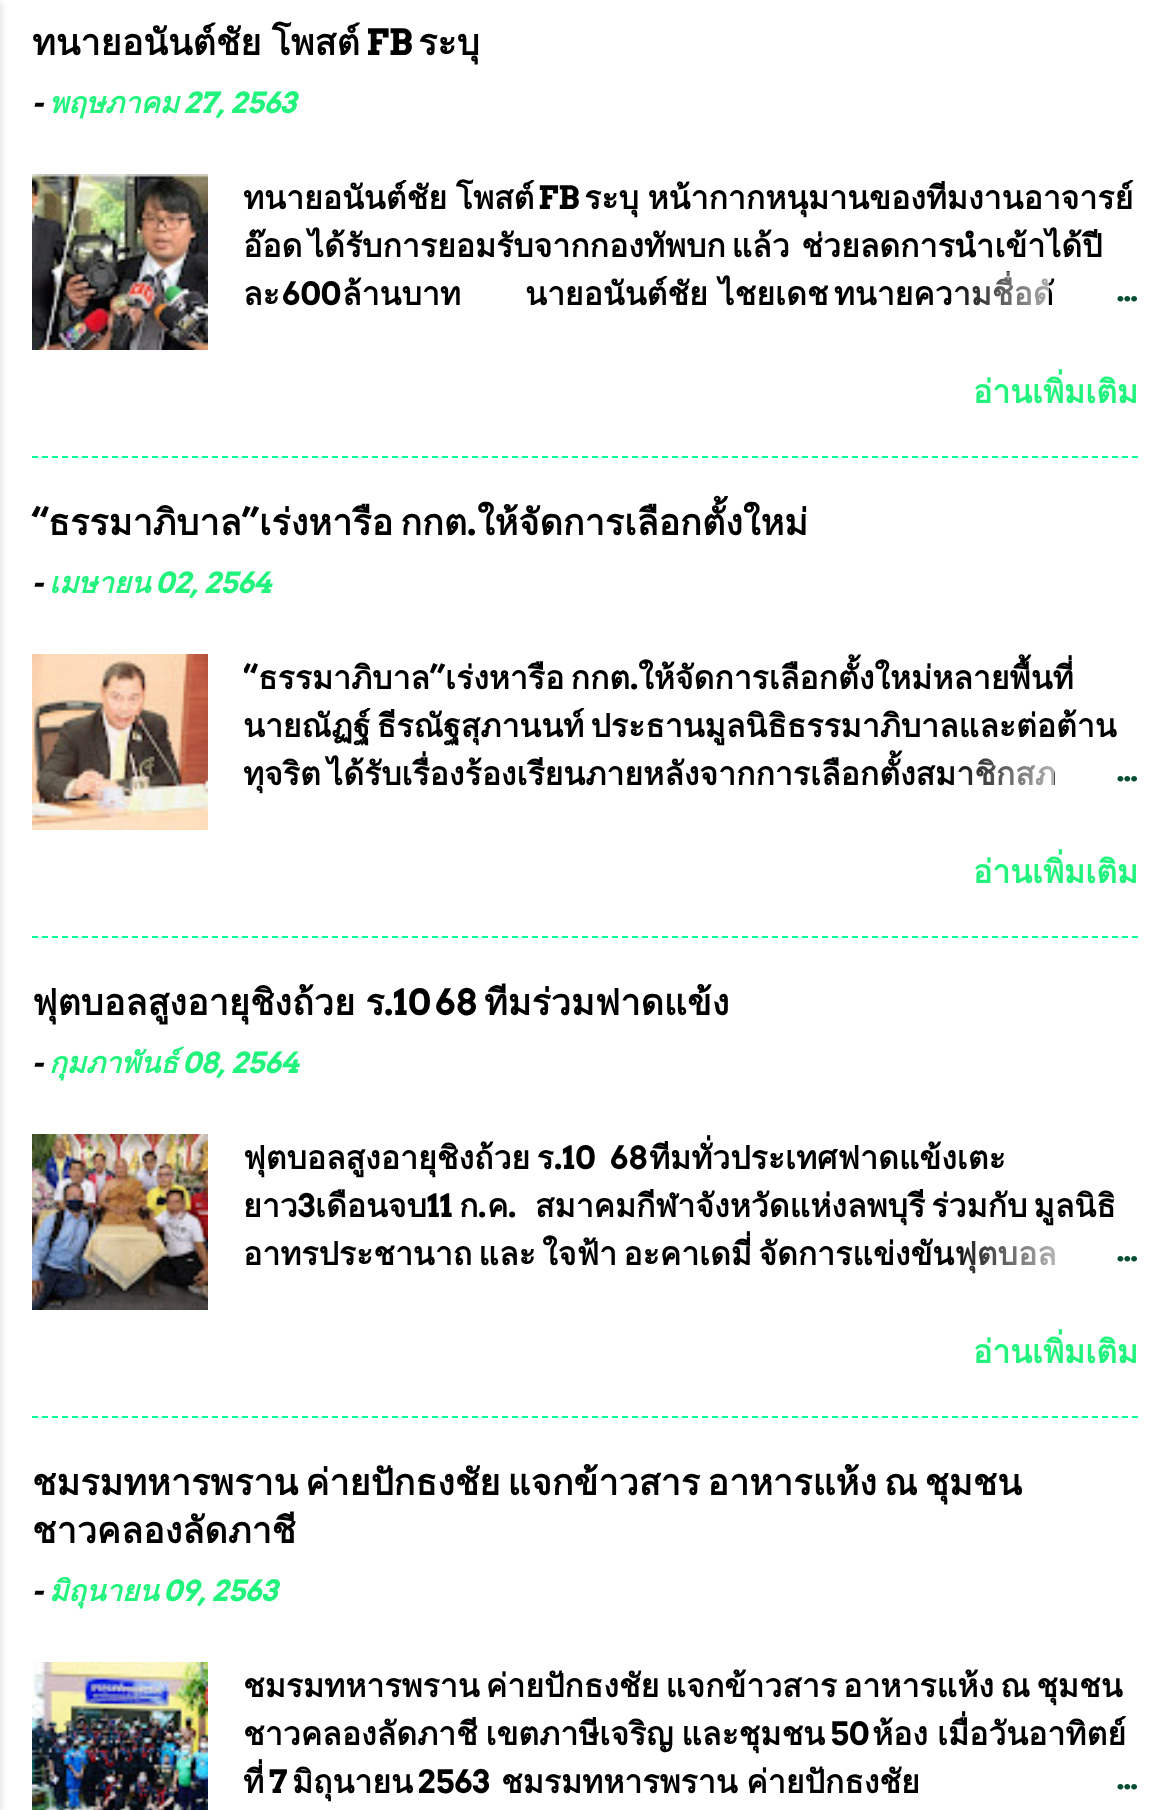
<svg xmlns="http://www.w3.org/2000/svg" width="1169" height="1810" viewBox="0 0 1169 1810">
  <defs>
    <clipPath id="clip1"><path d="M244 174h894v144H244z"/></clipPath>
    <linearGradient id="g1" gradientUnits="userSpaceOnUse" x1="1138" y1="294" x2="946" y2="294"><stop offset="0" stop-color="#fff"/><stop offset="0.2" stop-color="#fff"/><stop offset="1" stop-color="#fff" stop-opacity="0"/></linearGradient>
    <clipPath id="clip2"><path d="M244 654h894v144H244z"/></clipPath>
    <linearGradient id="g2" gradientUnits="userSpaceOnUse" x1="1138" y1="774" x2="946" y2="774"><stop offset="0" stop-color="#fff"/><stop offset="0.2" stop-color="#fff"/><stop offset="1" stop-color="#fff" stop-opacity="0"/></linearGradient>
    <clipPath id="clip3"><path d="M244 1134h894v144H244z"/></clipPath>
    <linearGradient id="g3" gradientUnits="userSpaceOnUse" x1="1138" y1="1254" x2="946" y2="1254"><stop offset="0" stop-color="#fff"/><stop offset="0.2" stop-color="#fff"/><stop offset="1" stop-color="#fff" stop-opacity="0"/></linearGradient>
    <clipPath id="clip4"><path d="M244 1662h894v144H244z"/></clipPath>
  </defs>
  <rect width="100%" height="100%" fill="#fff"/>
  <path d="M-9 2h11v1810H-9z" fill="#0000001a" filter="blur(3px)"/>
  <image x="32" y="174" width="176" height="176" href="img/1.png"/>
  <path d="M32 457H1138" fill="none" stroke="#00ff97" stroke-width="2" stroke-dasharray="6 4"/>
  <image x="32" y="654" width="176" height="176" href="img/2.png"/>
  <path d="M32 937H1138" fill="none" stroke="#00ff97" stroke-width="2" stroke-dasharray="6 4"/>
  <image x="32" y="1134" width="176" height="176" href="img/3.png"/>
  <path d="M32 1417H1138" fill="none" stroke="#00ff97" stroke-width="2" stroke-dasharray="6 4"/>
  <image x="32" y="1662" width="176" height="148" href="img/4.png"/>
  <text x="32" y="55" word-spacing="-2" font-family="Loma" font-size="36" font-weight="bold" fill="#000">ทนายอนันต์ชัย โพสต์</text>
  <text x="366" y="55" font-family="Arvo" font-size="36" font-weight="bold" fill="#000">FB</text>
  <text x="418" y="55" font-family="Loma" font-size="36" font-weight="bold" fill="#000">ระบุ</text>
  <text x="32" y="113" font-family="Arvo" font-size="29" font-weight="bold" font-style="italic" fill="#000">-</text>
  <text x="49" y="113" font-family="Loma" font-size="29" font-weight="bold" font-style="italic" fill="#21f37d">พฤษภาคม</text>
  <text x="183" y="113" font-family="Arvo" font-size="29" font-weight="bold" font-style="italic" fill="#21f37d">27, 2563</text>
  <text x="243" y="209" word-spacing="-2" font-family="Loma" font-size="32" font-weight="bold" fill="#000">ทนายอนันต์ชัย โพสต์</text>
  <text x="538" y="209" font-family="Arvo" font-size="32" font-weight="bold" fill="#000">FB</text>
  <text x="584" y="209" word-spacing="-2" font-family="Loma" font-size="32" font-weight="bold" fill="#000">ระบุ หน้ากากหนุมานของทีมงานอาจารย์</text>
  <g clip-path="url(#clip1)">
    <text x="243" y="257" word-spacing="-5" font-family="Loma" font-size="32" font-weight="bold" fill="#000" xml:space="preserve">อ๊อด ได้รับการยอมรับจากกองทัพบก แล้ว  ช่วยลดการนำเข้าได้ปี</text>
  </g>
  <text x="243" y="305" font-family="Loma" font-size="32" font-weight="bold" fill="#000">ละ</text>
  <text x="282" y="305" font-family="Arvo" font-size="32" font-weight="bold" fill="#000">600</text>
  <g font-family="Loma" font-size="32" font-weight="bold" fill="#000">
    <text x="342" y="305">ล้านบาท</text>
    <text x="525" y="305" word-spacing="-5.5" xml:space="preserve">นายอนันต์ชัย  ไชยเดช ทนายความชื่อดั</text>
  </g>
  <path d="M952 272h97v34H952z" fill="url(#g1)"/>
  <text x="1117" y="301" font-family="Arvo" font-size="32" font-weight="bold" fill="#054d30">…</text>
  <text x="973" y="403" font-family="Loma" font-size="32" font-weight="bold" fill="#21f37d">อ่านเพิ่มเติม</text>
  <text x="32" y="535" font-family="Arvo" font-size="36" font-weight="bold" fill="#000">“</text>
  <text x="48" y="535" font-family="Loma" font-size="36" font-weight="bold" fill="#000">ธรรมาภิบาล</text>
  <text x="242" y="535" font-family="Arvo" font-size="36" font-weight="bold" fill="#000">”</text>
  <text x="259" y="535" word-spacing="-5" font-family="Loma" font-size="36" font-weight="bold" fill="#000">เร่งหารือ กกต</text>
  <text x="467" y="535" font-family="Arvo" font-size="36" font-weight="bold" fill="#000">.</text>
  <text x="477" y="535" font-family="Loma" font-size="36" font-weight="bold" fill="#000">ให้จัดการเลือกตั้งใหม่</text>
  <text x="32" y="593" font-family="Arvo" font-size="29" font-weight="bold" font-style="italic" fill="#000">-</text>
  <text x="49" y="593" font-family="Loma" font-size="29" font-weight="bold" font-style="italic" fill="#21f37d">เมษายน</text>
  <text x="155" y="593" font-family="Arvo" font-size="29" font-weight="bold" font-style="italic" fill="#21f37d">02, 2564</text>
  <g clip-path="url(#clip2)">
    <text x="243" y="689" font-family="Arvo" font-size="32" font-weight="bold" fill="#000">“</text>
  </g>
  <text x="258" y="689" font-family="Loma" font-size="32" font-weight="bold" fill="#000">ธรรมาภิบาล</text>
  <text x="430" y="689" font-family="Arvo" font-size="32" font-weight="bold" fill="#000">”</text>
  <g font-family="Loma" font-size="32" font-weight="bold" fill="#000">
    <text x="445" y="689" word-spacing="-4.5">เร่งหารือ กกต</text>
    <text x="638" y="689">ให้จัดการเลือกตั้งใหม่หลายพื้นที่</text>
  </g>
  <text x="630" y="689" font-family="Arvo" font-size="32" font-weight="bold" fill="#000">.</text>
  <text x="243" y="737" word-spacing="-4.5" font-family="Loma" font-size="32" font-weight="bold" fill="#000">นายณัฏฐ์ ธีรณัฐสุภานนท์ ประธานมูลนิธิธรรมาภิบาลและต่อต้าน</text>
  <g clip-path="url(#clip2)">
    <text x="243" y="785" word-spacing="-4.5" font-family="Loma" font-size="32" font-weight="bold" fill="#000">ทุจริต ได้รับเรื่องร้องเรียนภายหลังจากการเลือกตั้งสมาชิกสภ</text>
  </g>
  <path d="M949 759h105v27H949z" fill="url(#g2)"/>
  <text x="1117" y="781" font-family="Arvo" font-size="32" font-weight="bold" fill="#054d30">…</text>
  <text x="973" y="883" font-family="Loma" font-size="32" font-weight="bold" fill="#21f37d">อ่านเพิ่มเติม</text>
  <text x="32" y="1015" word-spacing="-2" font-family="Loma" font-size="36" font-weight="bold" fill="#000">ฟุตบอลสูงอายุชิงถ้วย ร</text>
  <g font-family="Arvo" font-size="36" font-weight="bold" fill="#000">
    <text x="384" y="1015">.10</text>
    <text x="435" y="1015">68</text>
  </g>
  <text x="484" y="1015" font-family="Loma" font-size="36" font-weight="bold" fill="#000">ทีมร่วมฟาดแข้ง</text>
  <text x="32" y="1073" font-family="Arvo" font-size="29" font-weight="bold" font-style="italic" fill="#000">-</text>
  <text x="49" y="1073" font-family="Loma" font-size="29" font-weight="bold" font-style="italic" fill="#21f37d">กุมภาพันธ์</text>
  <text x="182" y="1073" font-family="Arvo" font-size="29" font-weight="bold" font-style="italic" fill="#21f37d">08, 2564</text>
  <g clip-path="url(#clip3)">
    <text x="243" y="1169" word-spacing="-4.5" font-family="Loma" font-size="32" font-weight="bold" fill="#000">ฟุตบอลสูงอายุชิงถ้วย ร</text>
  </g>
  <g font-family="Arvo" font-size="32" font-weight="bold" fill="#000">
    <text x="554" y="1169">.10</text>
    <text x="610" y="1169">68</text>
  </g>
  <g font-family="Loma" font-size="32" font-weight="bold" fill="#000">
    <text x="649" y="1169">ทีมทั่วประเทศฟาดแข้งเตะ</text>
    <text x="243" y="1217">ยาว</text>
  </g>
  <text x="298" y="1217" font-family="Arvo" font-size="32" font-weight="bold" fill="#000">3</text>
  <text x="315" y="1217" font-family="Loma" font-size="32" font-weight="bold" fill="#000">เดือนจบ</text>
  <text x="427" y="1217" font-family="Arvo" font-size="32" font-weight="bold" fill="#000">11</text>
  <text x="459" y="1217" font-family="Loma" font-size="32" font-weight="bold" fill="#000">ก</text>
  <text x="478" y="1217" font-family="Arvo" font-size="32" font-weight="bold" fill="#000">.</text>
  <text x="487" y="1217" font-family="Loma" font-size="32" font-weight="bold" fill="#000">ค</text>
  <text x="508" y="1217" font-family="Arvo" font-size="32" font-weight="bold" fill="#000">.</text>
  <g font-family="Loma" font-size="32" font-weight="bold" fill="#000">
    <text x="535" y="1217" word-spacing="-4.5">สมาคมกีฬาจังหวัดแห่งลพบุรี ร่วมกับ มูลนิธิ</text>
    <text x="243" y="1265" word-spacing="-4.5">อาทรประชานาถ และ ใจฟ้า อะคาเดมี่ จัดการแข่งขันฟุตบอล</text>
  </g>
  <path d="M949 1241h106v33H949z" fill="url(#g3)"/>
  <text x="1117" y="1261" font-family="Arvo" font-size="32" font-weight="bold" fill="#054d30">…</text>
  <text x="973" y="1363" font-family="Loma" font-size="32" font-weight="bold" fill="#21f37d">อ่านเพิ่มเติม</text>
  <g font-family="Loma" font-size="36" font-weight="bold" fill="#000">
    <text x="32" y="1495" word-spacing="-5">ชมรมทหารพราน ค่ายปักธงชัย แจกข้าวสาร อาหารแห้ง ณ ชุมชน</text>
    <text x="32" y="1543">ชาวคลองลัดภาชี</text>
  </g>
  <text x="163" y="1601" font-family="Arvo" font-size="29" font-weight="bold" font-style="italic" fill="#21f37d">09, 2563</text>
  <text x="32" y="1601" font-family="Arvo" font-size="29" font-weight="bold" font-style="italic" fill="#000">-</text>
  <text x="49" y="1601" font-family="Loma" font-size="29" font-weight="bold" font-style="italic" fill="#21f37d">มิถุนายน</text>
  <g font-family="Loma" font-size="32" font-weight="bold" fill="#000">
    <text x="243" y="1697" word-spacing="-4.5">ชมรมทหารพราน ค่ายปักธงชัย แจกข้าวสาร อาหารแห้ง ณ ชุมชน</text>
    <text x="243" y="1745" word-spacing="-3">ชาวคลองลัดภาชี เขตภาษีเจริญ และชุมชน</text>
  </g>
  <text x="830" y="1745" font-family="Arvo" font-size="32" font-weight="bold" fill="#000">50</text>
  <g font-family="Loma" font-size="32" font-weight="bold" fill="#000">
    <text x="872" y="1745">ห้อง</text>
    <text x="937" y="1745">เมื่อวันอาทิตย์</text>
  </g>
  <text x="417" y="1793" font-family="Arvo" font-size="32" font-weight="bold" fill="#000">2563</text>
  <text x="501" y="1793" word-spacing="-2" font-family="Loma" font-size="32" font-weight="bold" fill="#000">ชมรมทหารพราน ค่ายปักธงชัย</text>
  <g clip-path="url(#clip4)">
    <text x="243" y="1793" font-family="Loma" font-size="32" font-weight="bold" fill="#000">ที่</text>
  </g>
  <text x="269" y="1793" font-family="Arvo" font-size="32" font-weight="bold" fill="#000">7</text>
  <text x="292" y="1793" font-family="Loma" font-size="32" font-weight="bold" fill="#000">มิถุนายน</text>
  <text x="1117" y="1789" font-family="Arvo" font-size="32" font-weight="bold" fill="#054d30">…</text>
</svg>
